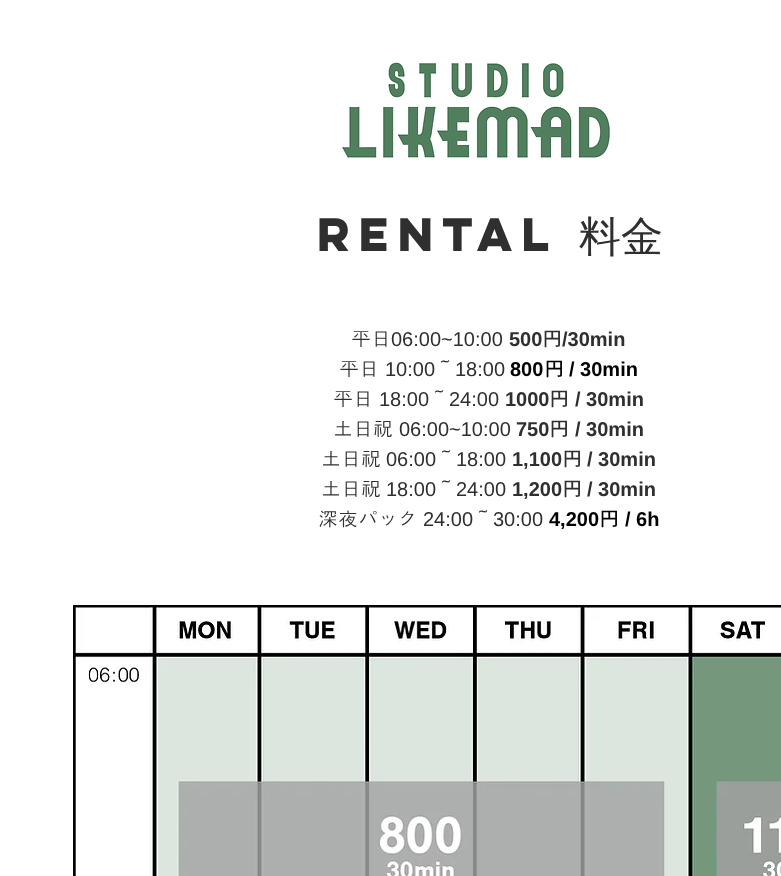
<svg xmlns="http://www.w3.org/2000/svg" width="781" height="876" viewBox="0 0 781 876">
  <rect width="100%" height="100%" fill="#fff"/>
  <image x="342" y="62" width="268" height="96" href="img/1.png"/>
  <image x="73" y="605" width="708" height="271" href="img/2.png"/>
  <text x="317" y="251" font-family="'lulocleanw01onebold'" font-size="42" font-weight="bold" fill="#2f2f2f">RENTAL</text>
  <text x="579" y="251" font-family="WenQuanYi Zen Hei" font-size="42" font-weight="500" fill="#2f2f2f">料金</text>
  <text x="351" y="346" font-family="Dotum" font-size="20" fill="#2f2f2f">平日</text>
  <text x="391" y="346" font-family="Liberation Sans" font-size="20" fill="#2f2f2f">06:00~10:00</text>
  <text x="509" y="346" font-family="Liberation Sans" font-size="20" font-weight="bold" fill="#2f2f2f">500</text>
  <text x="542" y="346" font-family="Dotum" font-size="20" font-weight="bold" fill="#2f2f2f">円</text>
  <text x="562" y="346" font-family="Liberation Sans" font-size="20" font-weight="bold" fill="#2f2f2f">/30min</text>
  <text x="339" y="376" font-family="Dotum" font-size="20" fill="#2f2f2f">平日</text>
  <text x="385" y="376" font-family="Liberation Sans" font-size="20" fill="#2f2f2f">10:00</text>
  <text x="435" y="376" font-family="Dotum" font-size="20" fill="#2f2f2f">～</text>
  <text x="455" y="376" font-family="Liberation Sans" font-size="20" fill="#2f2f2f">18:00</text>
  <text x="510" y="376" font-family="Liberation Sans" font-size="20" font-weight="bold" fill="#000">800</text>
  <text x="544" y="376" font-family="Dotum" font-size="20" font-weight="bold" fill="#000">円</text>
  <text x="569" y="376" font-family="Liberation Sans" font-size="20" font-weight="bold" fill="#000">/ 30min</text>
  <text x="333" y="406" font-family="Dotum" font-size="20" fill="#2f2f2f">平日</text>
  <text x="379" y="406" font-family="Liberation Sans" font-size="20" fill="#2f2f2f">18:00</text>
  <text x="429" y="406" font-family="Dotum" font-size="20" fill="#2f2f2f">～</text>
  <text x="449" y="406" font-family="Liberation Sans" font-size="20" fill="#2f2f2f">24:00</text>
  <text x="505" y="406" font-family="Liberation Sans" font-size="20" font-weight="bold" fill="#2f2f2f">1000</text>
  <text x="549" y="406" font-family="Dotum" font-size="20" font-weight="bold" fill="#2f2f2f">円</text>
  <text x="575" y="406" font-family="Liberation Sans" font-size="20" font-weight="bold" fill="#2f2f2f">/ 30min</text>
  <text x="333" y="436" font-family="Dotum" font-size="20" fill="#2f2f2f">土日祝</text>
  <text x="399" y="436" font-family="Liberation Sans" font-size="20" fill="#2f2f2f">06:00~10:00</text>
  <text x="516" y="436" font-family="Liberation Sans" font-size="20" font-weight="bold" fill="#2f2f2f">750</text>
  <text x="549" y="436" font-family="Dotum" font-size="20" font-weight="bold" fill="#2f2f2f">円</text>
  <text x="575" y="436" font-family="Liberation Sans" font-size="20" font-weight="bold" fill="#2f2f2f">/ 30min</text>
  <text x="321" y="466" font-family="Dotum" font-size="20" fill="#2f2f2f">土日祝</text>
  <text x="386" y="466" font-family="Liberation Sans" font-size="20" fill="#2f2f2f">06:00</text>
  <text x="436" y="466" font-family="Dotum" font-size="20" fill="#2f2f2f">～</text>
  <text x="456" y="466" font-family="Liberation Sans" font-size="20" fill="#2f2f2f">18:00</text>
  <text x="512" y="466" font-family="Liberation Sans" font-size="20" font-weight="bold" fill="#2f2f2f">1,100</text>
  <text x="562" y="466" font-family="Dotum" font-size="20" font-weight="bold" fill="#2f2f2f">円</text>
  <text x="587" y="466" font-family="Liberation Sans" font-size="20" font-weight="bold" fill="#2f2f2f">/ 30min</text>
  <text x="321" y="496" font-family="Dotum" font-size="20" fill="#2f2f2f">土日祝</text>
  <text x="386" y="496" font-family="Liberation Sans" font-size="20" fill="#2f2f2f">18:00</text>
  <text x="436" y="496" font-family="Dotum" font-size="20" fill="#2f2f2f">～</text>
  <text x="456" y="496" font-family="Liberation Sans" font-size="20" fill="#2f2f2f">24:00</text>
  <text x="512" y="496" font-family="Liberation Sans" font-size="20" font-weight="bold" fill="#2f2f2f">1,200</text>
  <text x="562" y="496" font-family="Dotum" font-size="20" font-weight="bold" fill="#2f2f2f">円</text>
  <text x="587" y="496" font-family="Liberation Sans" font-size="20" font-weight="bold" fill="#2f2f2f">/ 30min</text>
  <text x="318" y="526" font-family="Dotum" font-size="20" fill="#2f2f2f">深夜パック</text>
  <text x="423" y="526" font-family="Liberation Sans" font-size="20" fill="#2f2f2f">24:00</text>
  <text x="473" y="526" font-family="Dotum" font-size="20" fill="#2f2f2f">～</text>
  <text x="493" y="526" font-family="Liberation Sans" font-size="20" fill="#2f2f2f">30:00</text>
  <text x="549" y="526" font-family="Liberation Sans" font-size="20" font-weight="bold" fill="#000">4,200</text>
  <text x="599" y="526" font-family="Dotum" font-size="20" font-weight="bold" fill="#000">円</text>
  <text x="625" y="526" font-family="Liberation Sans" font-size="20" font-weight="bold" fill="#000">/ 6h</text>
</svg>
